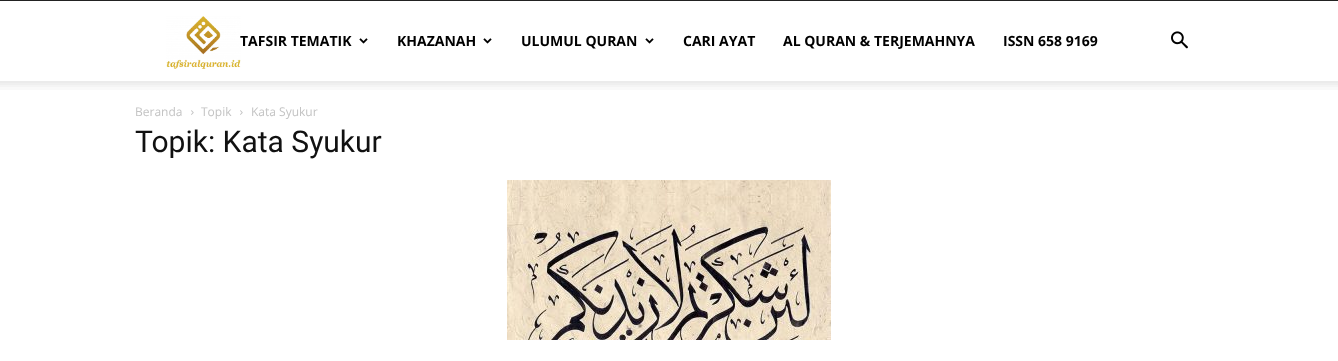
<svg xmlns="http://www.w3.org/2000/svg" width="1338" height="361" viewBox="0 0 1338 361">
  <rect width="100%" height="100%" fill="#fff"/>
  <path d="M0 0h1338v1H0z" fill="#222"/>
  <image x="166" y="16" width="75" height="53" href="img/1.png"/>
  <image x="359" y="38" width="9" height="6" href="img/2.png"/>
  <image x="483" y="38" width="9" height="6" href="img/2.png"/>
  <image x="645" y="38" width="9" height="6" href="img/2.png"/>
  <image x="1171" y="31" width="17" height="18" href="img/3.png"/>
  <image x="0" y="81" width="1338" height="9" href="img/4.png"/>
  <image x="191" y="110" width="3" height="5" href="img/5.png"/>
  <image x="240" y="110" width="3" height="5" href="img/5.png"/>
  <image x="507" y="180" width="324" height="160" href="img/6.png"/>
  <g font-family="Open Sans" font-size="14" font-weight="bold" fill="#000">
    <text x="240" y="46">TAFSIR TEMATIK</text>
    <text x="397" y="46">KHAZANAH</text>
    <text x="521" y="46">ULUMUL QURAN</text>
    <text x="683" y="46">CARI AYAT</text>
    <text x="783" y="46">AL QURAN &amp; TERJEMAHNYA</text>
    <text x="1003" y="46">ISSN 658 9169</text>
  </g>
  <g font-family="Open Sans" font-size="12" fill="#c3c3c3">
    <text x="135" y="116">Beranda</text>
    <text x="201" y="116">Topik</text>
    <text x="251" y="116">Kata Syukur</text>
  </g>
  <text x="135" y="152" font-family="Roboto" font-size="30" fill="#111">Topik: Kata Syukur</text>
</svg>
